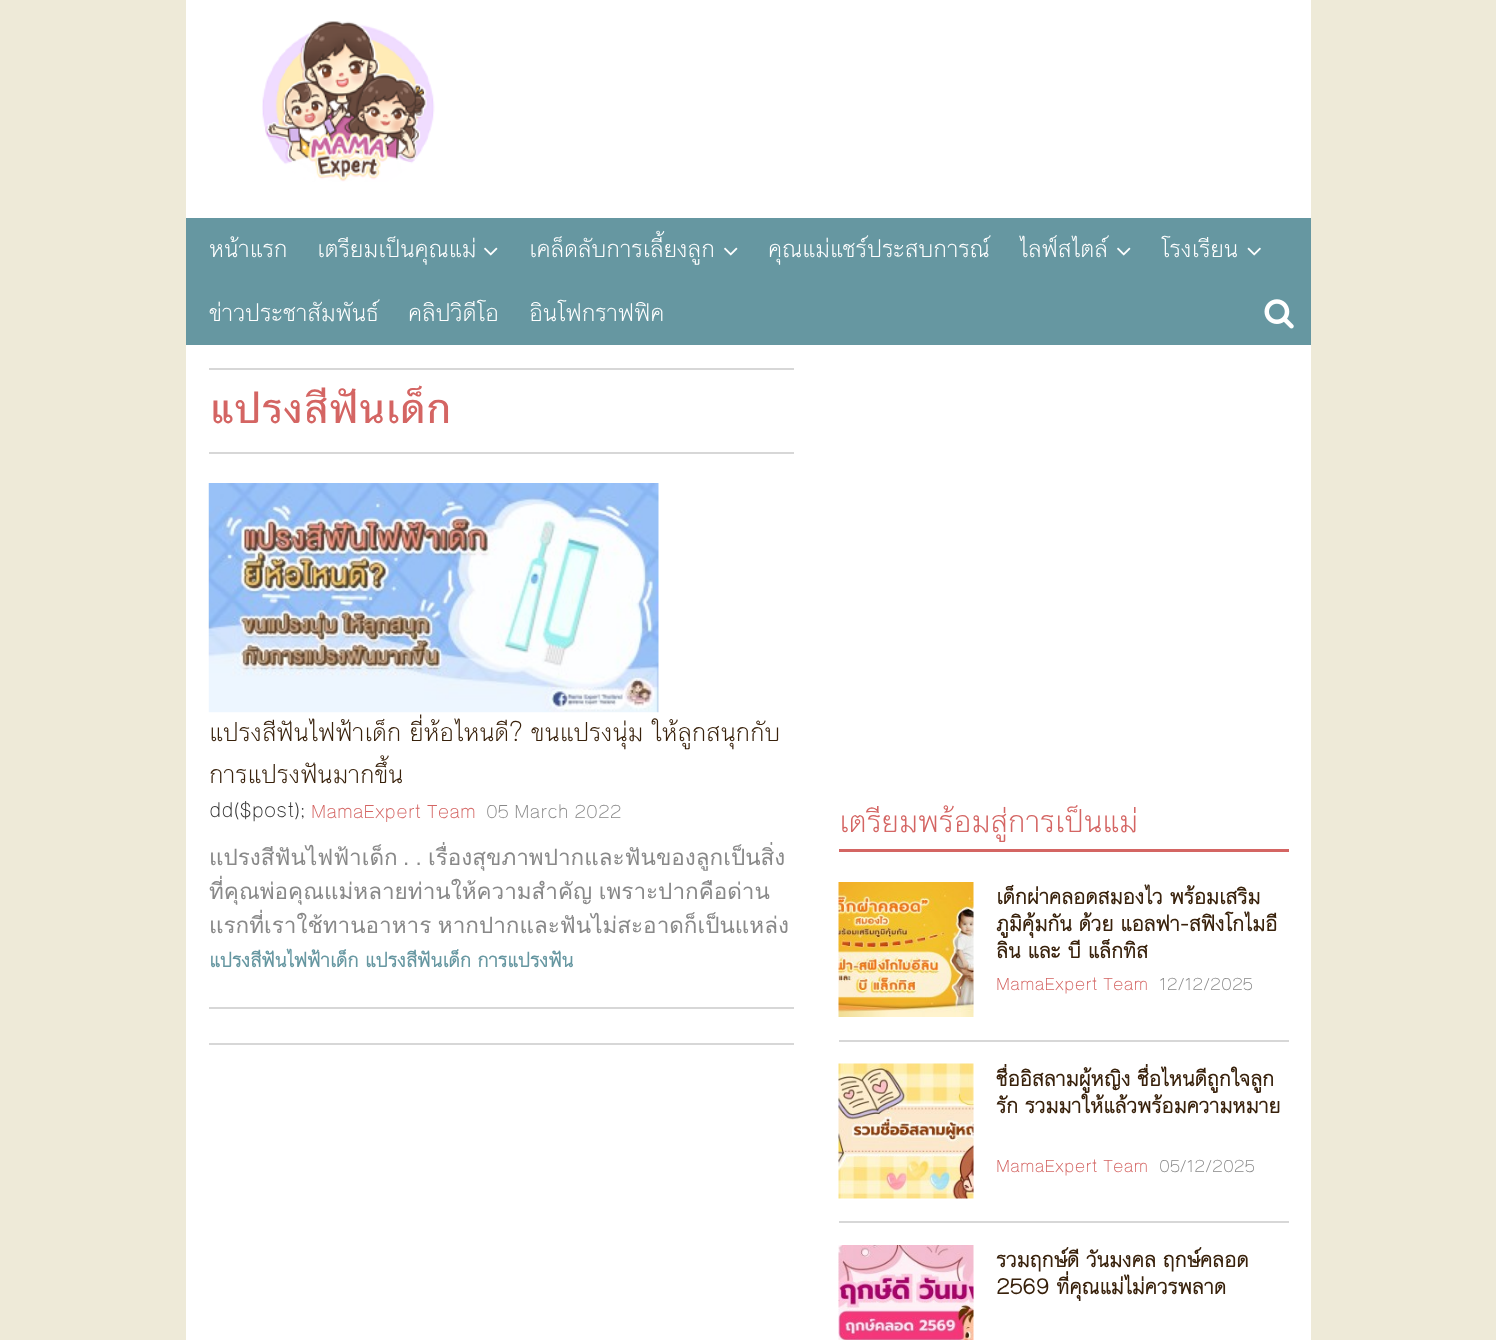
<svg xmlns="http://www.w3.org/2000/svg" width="1496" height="1340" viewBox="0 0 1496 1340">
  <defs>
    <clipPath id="clip1"><path d="M209 842h585v97H209z"/></clipPath>
    <clipPath id="clip2"><path d="M996 882h293v81H996z"/></clipPath>
    <clipPath id="clip3"><path d="M996 1064h293v81H996z"/></clipPath>
  </defs>
  <rect width="100%" height="100%" fill="#eeead8"/>
  <path d="M186 0h1125v1340H186z" fill="#fff"/>
  <image x="262" y="21" width="173" height="161" href="img/1.png"/>
  <path d="M186 218h1125v127H186z" fill="#6697a1"/>
  <image x="484" y="247" width="14" height="9" href="img/2.png"/>
  <image x="724" y="247" width="14" height="9" href="img/2.png"/>
  <image x="1117" y="247" width="14" height="9" href="img/2.png"/>
  <image x="1247" y="247" width="14" height="9" href="img/3.png"/>
  <image x="1264" y="299" width="30" height="30" href="img/4.png"/>
  <path d="M209 368h585v2H209z" fill="#d7d7d7"/>
  <path d="M209 452h585v2H209z" fill="#d7d7d7"/>
  <path d="M209 1007h585v2H209z" fill="#d7d7d7"/>
  <image x="208" y="483" width="451" height="230" href="img/5.png"/>
  <path d="M209 1043h585v2H209z" fill="#d7d7d7"/>
  <path d="M839 849h450v3H839z" fill="#d46563"/>
  <path d="M839 1040h450v2H839z" fill="#d7d7d7"/>
  <image x="838" y="882" width="136" height="135" href="img/6.png"/>
  <path d="M839 1221h450v2H839z" fill="#d7d7d7"/>
  <image x="838" y="1063" width="136" height="136" href="img/7.png"/>
  <image x="838" y="1245" width="136" height="95" href="img/8.png"/>
  <g font-family="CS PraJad" font-size="25.5" fill="#fff">
    <text x="209" y="257">หน้าแรก</text>
    <text x="317" y="257">เตรียมเป็นคุณแม่</text>
    <text x="529" y="257">เคล็ดลับการเลี้ยงลูก</text>
    <text x="768" y="257">คุณแม่แชร์ประสบการณ์</text>
    <text x="1019" y="257">ไลฟ์สไตล์</text>
    <text x="1161" y="257">โรงเรียน</text>
    <text x="209" y="321">ข่าวประชาสัมพันธ์</text>
    <text x="408" y="321">คลิปวิดีโอ</text>
    <text x="529" y="321">อินโฟกราฟฟิค</text>
  </g>
  <text x="209" y="423" font-family="'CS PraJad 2'" font-size="45" font-weight="bold" fill="#d46563">แปรงสีฟันเด็ก</text>
  <g font-family="CS PraJad" font-size="27" fill="#38210b">
    <text x="209" y="741">แปรงสีฟันไฟฟ้าเด็ก ยี่ห้อไหนดี? ขนแปรงนุ่ม ให้ลูกสนุกกับ</text>
    <text x="209" y="783">การแปรงฟันมากขึ้น</text>
  </g>
  <text x="209" y="817" font-family="CS PraJad" font-size="21" fill="#333">dd($post);</text>
  <text x="311" y="818" font-family="CS PraJad" font-size="19.5" fill="#d46563">MamaExpert Team</text>
  <text x="486" y="818" font-family="CS PraJad" font-size="19.5" fill="#898989">05 March 2022</text>
  <text x="209" y="865" font-family="Loma" font-size="22.5" fill="#898989">แปรงสีฟันไฟฟ้าเด็ก</text>
  <text x="403" y="865" font-family="Liberation Sans" font-size="22.5" fill="#898989">. .</text>
  <g clip-path="url(#clip1)">
    <g font-family="Loma" font-size="22.5" fill="#898989">
      <text x="428" y="865">เรื่องสุขภาพปากและฟันของลูกเป็นสิ่ง</text>
      <text x="209" y="899" word-spacing="-1">ที่คุณพ่อคุณแม่หลายท่านให้ความสำคัญ เพราะปากคือด่าน</text>
    </g>
  </g>
  <text x="209" y="933" word-spacing="-1" font-family="Loma" font-size="22.5" fill="#898989">แรกที่เราใช้ทานอาหาร หากปากและฟันไม่สะอาดก็เป็นแหล่ง</text>
  <text x="209" y="967" font-family="CS PraJad" font-size="21" font-weight="bold" fill="#6697a1">แปรงสีฟันไฟฟ้าเด็ก แปรงสีฟันเด็ก การแปรงฟัน</text>
  <text x="839" y="832" font-family="CS PraJad" font-size="33" fill="#d46563">เตรียมพร้อมสู่การเป็นแม่</text>
  <g clip-path="url(#clip2)">
    <g font-family="CS PraJad" font-size="22.5" font-weight="bold" fill="#38210b">
      <text x="996" y="904">เด็กผ่าคลอดสมองไว พร้อมเสริม</text>
      <text x="996" y="931">ภูมิคุ้มกัน ด้วย แอลฟา-สฟิงโกไมอี</text>
      <text x="996" y="958">ลิน และ บี แล็กทิส</text>
    </g>
  </g>
  <text x="996" y="990" font-family="CS PraJad" font-size="18" fill="#d46563">MamaExpert Team</text>
  <text x="1159" y="990" font-family="CS PraJad" font-size="18" fill="#898989">12/12/2025</text>
  <g clip-path="url(#clip3)">
    <g font-family="CS PraJad" font-size="22.5" font-weight="bold" fill="#38210b">
      <text x="996" y="1086">ชื่ออิสลามผู้หญิง ชื่อไหนดีถูกใจลูก</text>
      <text x="996" y="1113">รัก รวมมาให้แล้วพร้อมความหมาย</text>
    </g>
  </g>
  <text x="996" y="1172" font-family="CS PraJad" font-size="18" fill="#d46563">MamaExpert Team</text>
  <text x="1159" y="1172" font-family="CS PraJad" font-size="18" fill="#898989">05/12/2025</text>
  <g font-family="CS PraJad" font-size="22.5" font-weight="bold" fill="#38210b">
    <text x="996" y="1267">รวมฤกษ์ดี วันมงคล ฤกษ์คลอด</text>
    <text x="996" y="1294">2569 ที่คุณแม่ไม่ควรพลาด</text>
  </g>
</svg>
